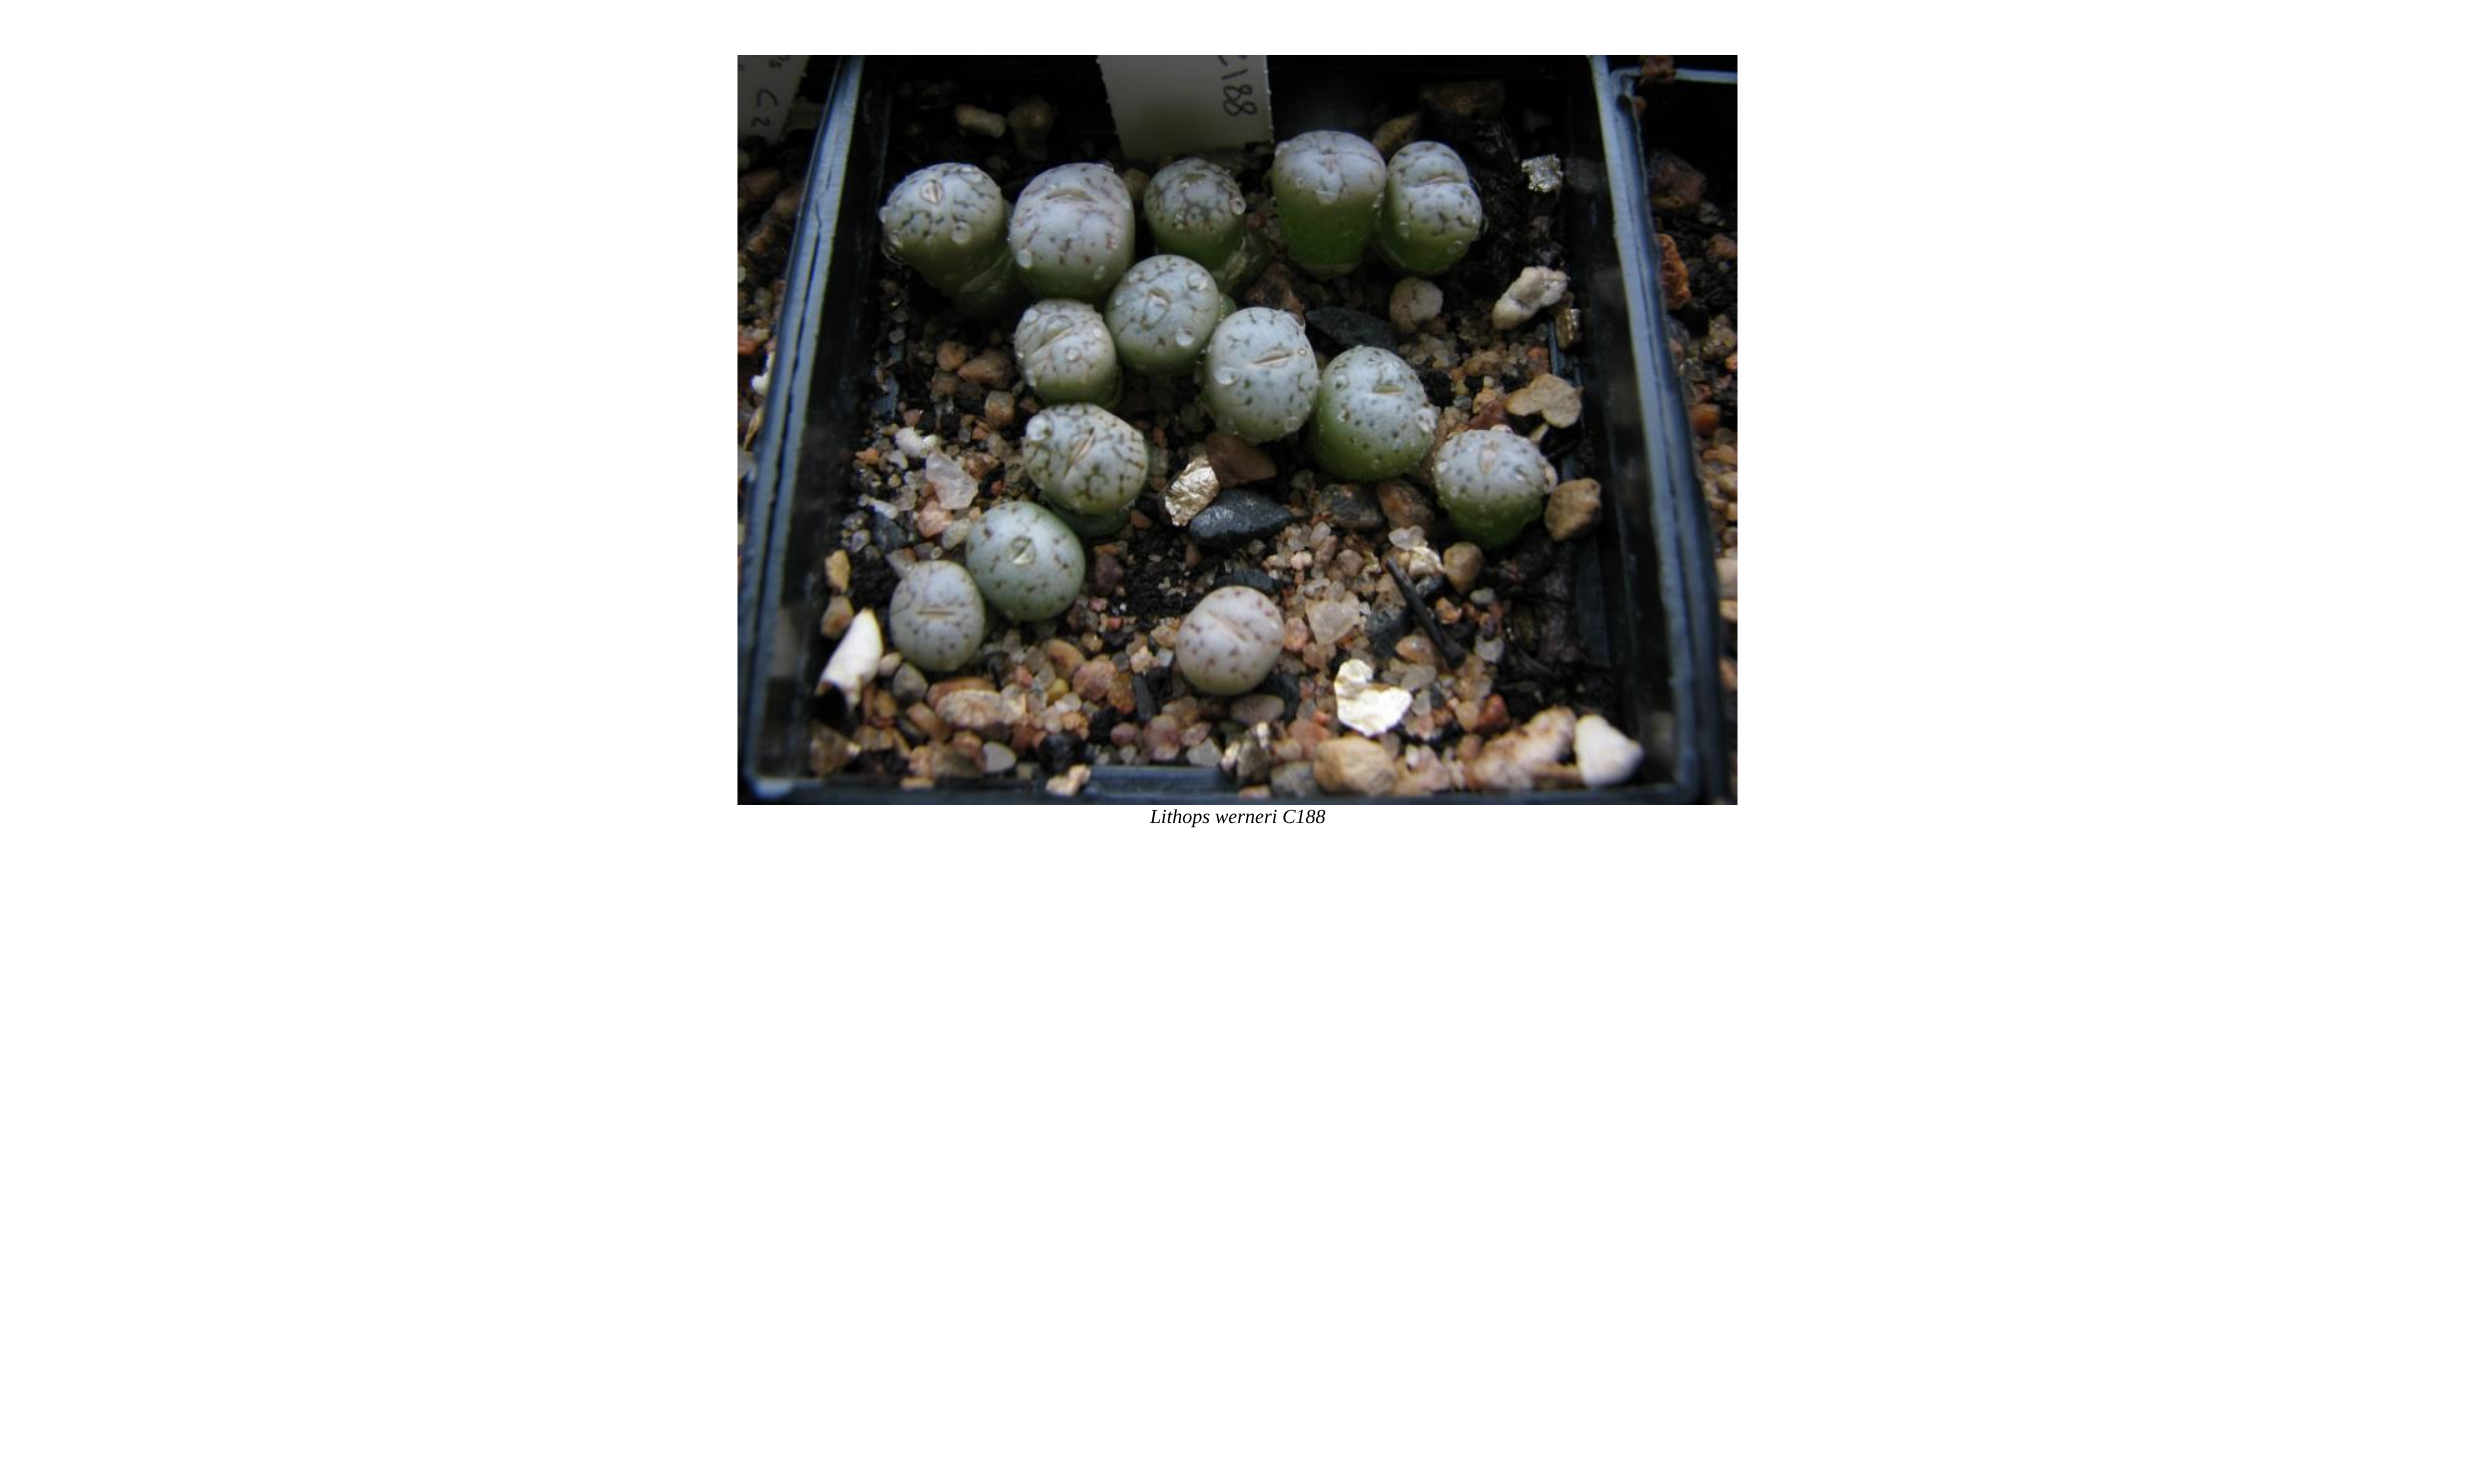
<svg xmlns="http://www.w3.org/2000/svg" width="2475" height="1457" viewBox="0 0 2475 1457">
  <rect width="100%" height="100%" fill="#fff"/>
  <image x="737" y="55" width="1001" height="750" href="img/1.png"/>
  <text x="1150" y="823" font-family="Liberation Serif" font-size="20" font-style="italic" fill="#000">Lithops werneri C188</text>
</svg>
